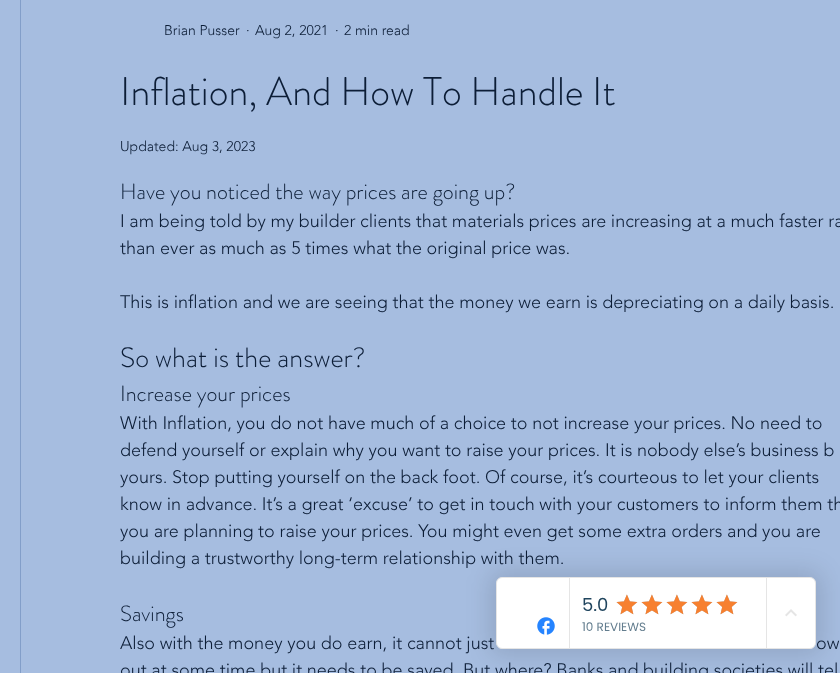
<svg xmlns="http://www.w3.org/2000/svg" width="840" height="673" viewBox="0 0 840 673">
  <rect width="100%" height="100%" fill="#a6bde0"/>
  <path d="M20.5 -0.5h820v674H20.5z" fill="none" stroke="#829ec9"/>
  <rect x="490" y="571" width="332" height="84" rx="12" fill="#0000001f" filter="blur(12px)"/>
  <rect x="496.5" y="577.5" width="319" height="71" rx="5.5" fill="#fff" stroke="#e5e5e5"/>
  <path d="M569 578h1v70H569z" fill="#e5e5e5"/>
  <image x="537" y="617" width="18" height="18" href="img/1.png"/>
  <path d="M766 578h1v70H766z" fill="#e5e5e5"/>
  <image x="616" y="594" width="22" height="21" href="img/2.png"/>
  <image x="616" y="594" width="22" height="21" href="img/3.png"/>
  <image x="641" y="594" width="22" height="21" href="img/2.png"/>
  <image x="641" y="594" width="22" height="21" href="img/3.png"/>
  <image x="666" y="594" width="22" height="21" href="img/2.png"/>
  <image x="666" y="594" width="22" height="21" href="img/3.png"/>
  <image x="691" y="594" width="22" height="21" href="img/2.png"/>
  <image x="691" y="594" width="22" height="21" href="img/3.png"/>
  <image x="716" y="594" width="22" height="21" href="img/2.png"/>
  <image x="716" y="594" width="22" height="21" href="img/3.png"/>
  <image x="785" y="609" width="12" height="8" href="img/4.png"/>
  <g font-family="'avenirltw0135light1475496'" font-size="14" font-weight="300" fill="#0c1d36">
    <text x="164" y="35">Brian Pusser</text>
    <text x="246" y="35">·</text>
    <text x="255" y="35">Aug 2, 2021</text>
    <text x="335" y="35">·</text>
    <text x="344" y="35">2 min read</text>
  </g>
  <text x="120" y="105" font-family="'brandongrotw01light'" font-size="40" font-weight="300" fill="#0c1d36">Inflation, And How To Handle It</text>
  <text x="120" y="151" font-family="'avenirltw0135light1475496'" font-size="14" font-weight="300" fill="#0c1d36">Updated: Aug 3, 2023</text>
  <text x="120" y="199" font-family="'brandongrotw01light'" font-size="22" font-weight="300" fill="#0c1d36">Have you noticed the way prices are going up?</text>
  <g font-family="'avenirltw0135light1475496'" font-size="18" font-weight="300" fill="#0c1d36">
    <text x="120" y="227">I am being told by my builder clients that materials prices are increasing at a much faster ra</text>
    <text x="120" y="254">than ever as much as 5 times what the original price was.</text>
    <text x="120" y="308">This is inflation and we are seeing that the money we earn is depreciating on a daily basis.</text>
  </g>
  <text x="120" y="367" font-family="'brandongrotw01light'" font-size="28" font-weight="300" fill="#0c1d36">So what is the answer?</text>
  <text x="120" y="401" font-family="'brandongrotw01light'" font-size="22" font-weight="300" fill="#0c1d36">Increase your prices</text>
  <g font-family="'avenirltw0135light1475496'" font-size="18" font-weight="300" fill="#0c1d36">
    <text x="120" y="429">With Inflation, you do not have much of a choice to not increase your prices. No need to</text>
    <text x="120" y="456">defend yourself or explain why you want to raise your prices. It is nobody else’s business b</text>
    <text x="120" y="483">yours. Stop putting yourself on the back foot. Of course, it’s courteous to let your clients</text>
    <text x="120" y="510">know in advance. It’s a great ‘excuse’ to get in touch with your customers to inform them th</text>
    <text x="120" y="537">you are planning to raise your prices. You might even get some extra orders and you are</text>
    <text x="120" y="564">building a trustworthy long-term relationship with them.</text>
  </g>
  <text x="120" y="621" font-family="'brandongrotw01light'" font-size="22" font-weight="300" fill="#0c1d36">Savings</text>
  <g font-family="'avenirltw0135light1475496'" font-size="18" font-weight="300" fill="#0c1d36">
    <text x="120" y="649">Also with the money you do earn, it cannot just</text>
    <text x="816" y="649">ow</text>
    <text x="120" y="676">out at some time but it needs to be saved. But where? Banks and building societies will tel</text>
  </g>
  <text x="582" y="611" font-family="Poppins" font-size="18" fill="#20455e">5.0</text>
  <text x="582" y="631" font-family="Poppins" font-size="12" fill="#637d8e">10 REVIEWS</text>
</svg>
